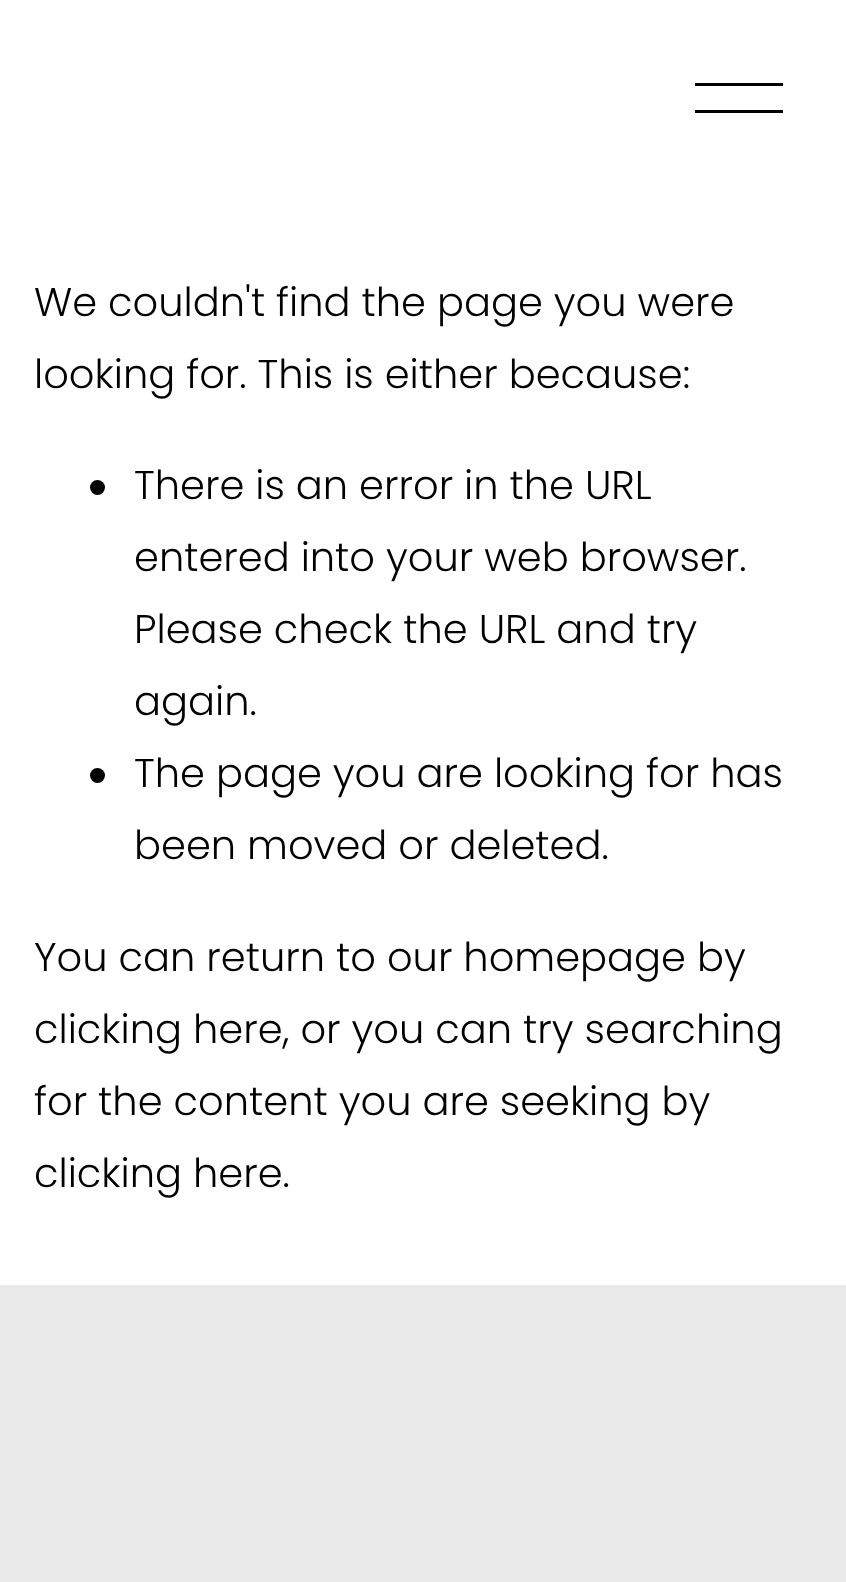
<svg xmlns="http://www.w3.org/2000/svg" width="846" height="1582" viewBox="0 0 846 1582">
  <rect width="100%" height="100%" fill="#fff"/>
  <path d="M695 83h88v3H695z" fill="#000"/>
  <path d="M695 110h88v3H695z" fill="#000"/>
  <circle cx="97.5" cy="487.5" r="7.5" fill="#000"/>
  <circle cx="97.5" cy="775.5" r="7.5" fill="#000"/>
  <path d="M0 1285h846v297H0z" fill="#ebeaeb"/>
  <g font-family="Poppins" font-size="40" font-weight="300" fill="#000">
    <text x="34" y="316">We couldn't find the page you were</text>
    <text x="34" y="388">looking for. This is either because:</text>
    <text x="134" y="499">There is an error in the URL</text>
    <text x="134" y="571">entered into your web browser.</text>
    <text x="134" y="643">Please check the URL and try</text>
    <text x="134" y="715">again.</text>
    <text x="134" y="787">The page you are looking for has</text>
    <text x="134" y="859">been moved or deleted.</text>
    <text x="34" y="971">You can return to our homepage by</text>
    <text x="34" y="1043">clicking here, or you can try searching</text>
    <text x="34" y="1115">for the content you are seeking by</text>
    <text x="34" y="1187">clicking here.</text>
  </g>
</svg>
